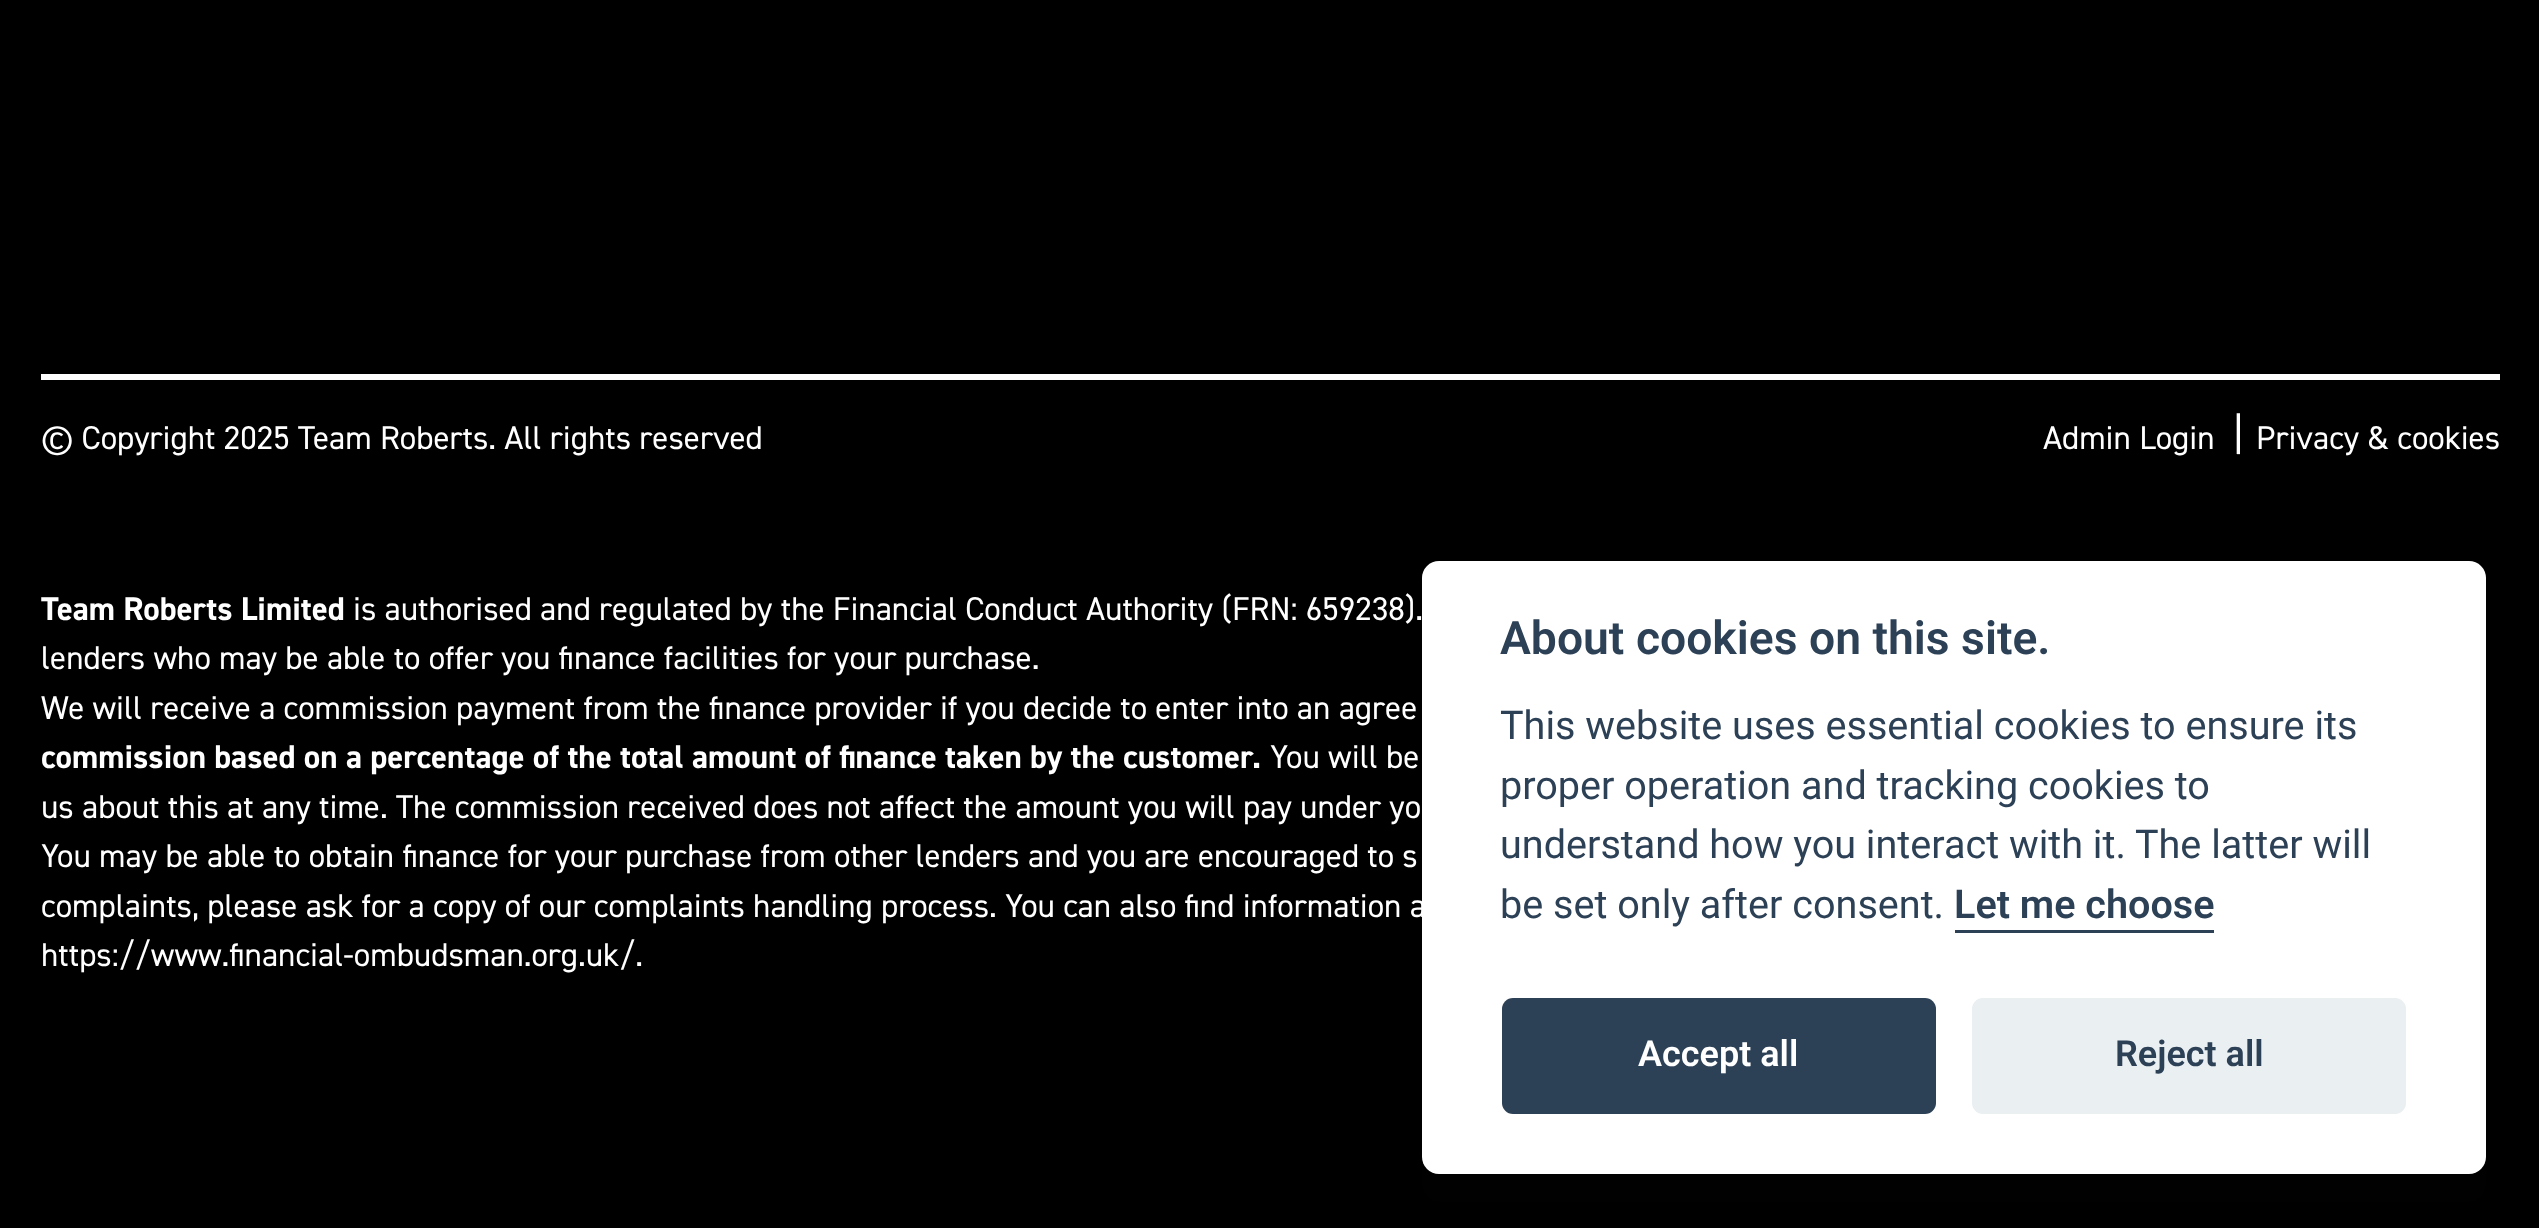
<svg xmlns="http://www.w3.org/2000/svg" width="2539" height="1228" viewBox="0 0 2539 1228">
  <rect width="100%" height="100%" fill="#000"/>
  <path d="M41 374h2459v6H41z" fill="#fff"/>
  <rect x="1422" y="589" width="1064" height="613" rx="17" fill="#02020347" filter="blur(41px)"/>
  <rect x="1422" y="561" width="1064" height="613" rx="17" fill="#fff"/>
  <path d="M1955 930h259v3H1955z" fill="#2d4156"/>
  <rect x="1502" y="998" width="434" height="116" rx="11" fill="#2d4156"/>
  <rect x="1972" y="998" width="434" height="116" rx="11" fill="#eaeff2"/>
  <g font-family="'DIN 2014'" font-size="33" fill="#fff">
    <text x="41" y="449">© Copyright 2025 Team Roberts. All rights reserved</text>
    <text x="2043" y="449">Admin Login</text>
  </g>
  <text x="2233" y="449" font-family="'DIN 2014'" font-size="44" fill="#fff">|</text>
  <text x="2256" y="449" font-family="'DIN 2014'" font-size="33" fill="#fff">Privacy &amp; cookies</text>
  <text x="41" y="620" font-family="'DIN 2014'" font-size="33" font-weight="bold" fill="#fff">Team Roberts Limited</text>
  <g font-family="'DIN 2014'" font-size="33" fill="#fff">
    <text x="353" y="620">is authorised and regulated by the Financial Conduct Authority (FRN: 659238).</text>
    <text x="41" y="669">lenders who may be able to offer you finance facilities for your purchase.</text>
    <text x="41" y="719">We will receive a commission payment from the finance provider if you decide to enter into an agree</text>
  </g>
  <text x="41" y="768" font-family="'DIN 2014'" font-size="33" font-weight="bold" fill="#fff">commission based on a percentage of the total amount of finance taken by the customer.</text>
  <g font-family="'DIN 2014'" font-size="33" fill="#fff">
    <text x="1270" y="768">You will be</text>
    <text x="41" y="818">us about this at any time. The commission received does not affect the amount you will pay under yo</text>
    <text x="41" y="867">You may be able to obtain finance for your purchase from other lenders and you are encouraged to s</text>
    <text x="41" y="917">complaints, please ask for a copy of our complaints handling process. You can also find information a</text>
    <text x="41" y="966">https://www.financial-ombudsman.org.uk/.</text>
  </g>
  <text x="1500" y="654" font-family="Roboto" font-size="46.25" font-weight="600" fill="#2d4156">About cookies on this site.</text>
  <g font-family="Roboto" font-size="39.6" fill="#2d4156">
    <text x="1500" y="739">This website uses essential cookies to ensure its</text>
    <text x="1500" y="799">proper operation and tracking cookies to</text>
    <text x="1500" y="858">understand how you interact with it. The latter will</text>
    <text x="1500" y="918">be set only after consent.</text>
  </g>
  <text x="1954" y="918" font-family="Roboto" font-size="39.6" font-weight="600" fill="#2d4156">Let me choose</text>
  <text x="1638" y="1066" font-family="Roboto" font-size="36" font-weight="600" fill="#fff">Accept all</text>
  <text x="2115" y="1066" font-family="Roboto" font-size="36" font-weight="600" fill="#2d4156">Reject all</text>
</svg>
